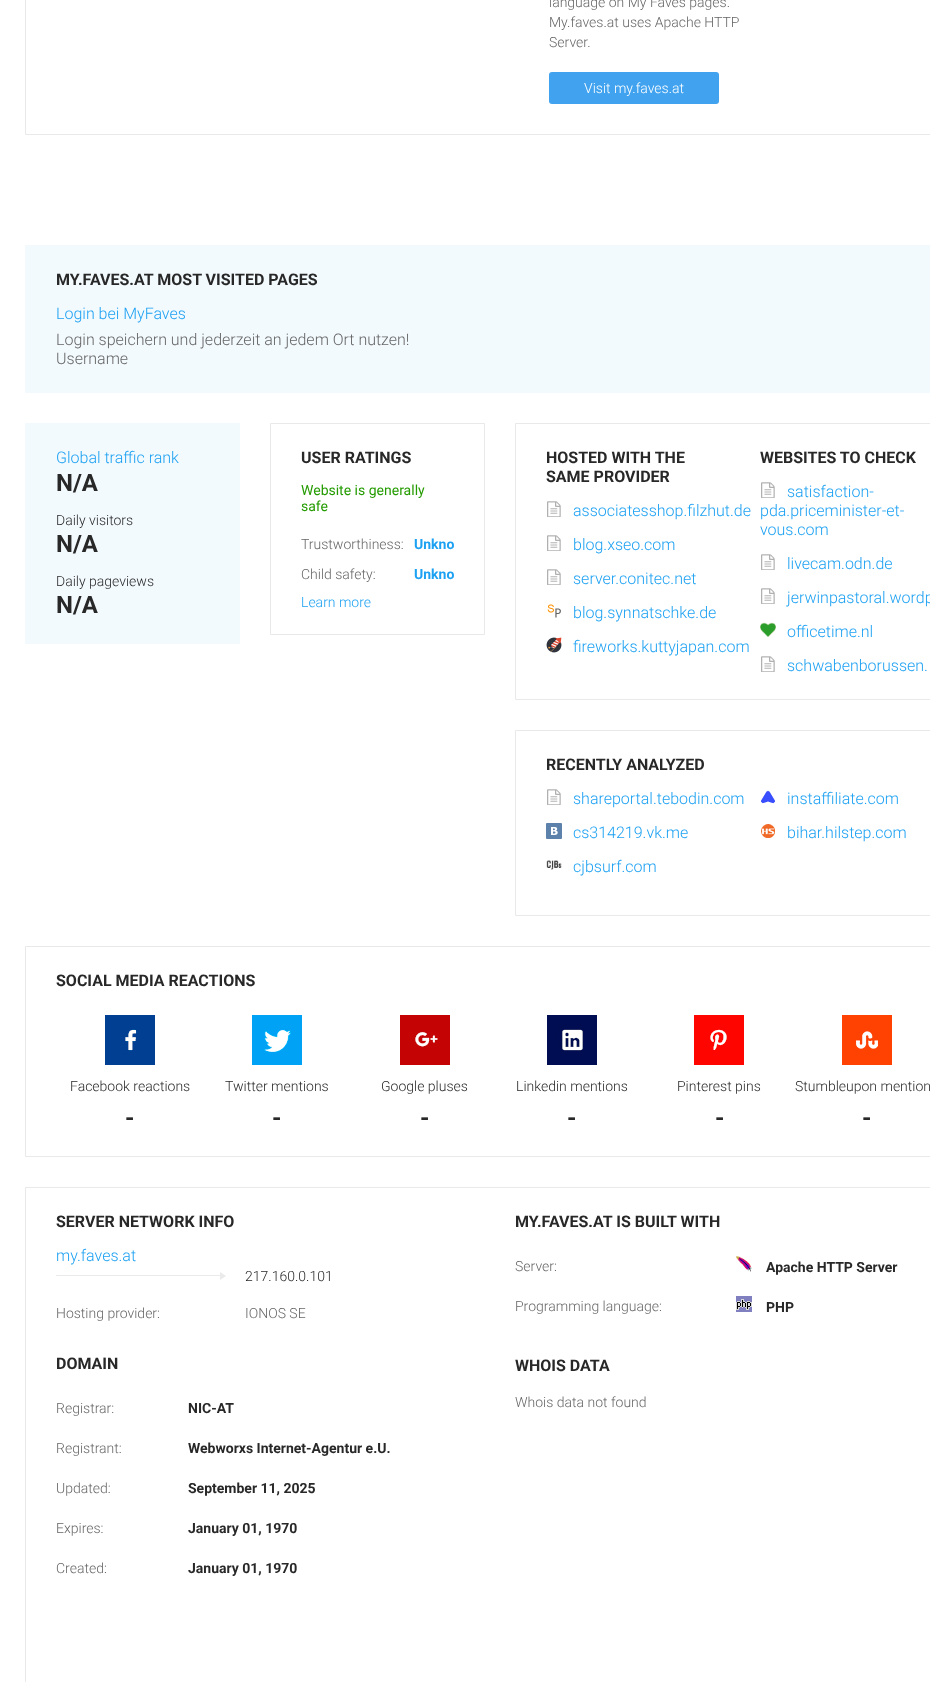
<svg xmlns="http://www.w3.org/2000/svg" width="930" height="1682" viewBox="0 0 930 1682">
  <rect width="100%" height="100%" fill="#fff"/>
  <path d="M25.5 -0.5h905v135H25.5z" fill="none" stroke="#e9e9e9"/>
  <rect x="549" y="72" width="170" height="32" rx="3" fill="#41a3ef"/>
  <path d="M25 245h905v148H25z" fill="#f3fafe"/>
  <path d="M25 423h215v221H25z" fill="#f3fafe"/>
  <path d="M270.5 423.5h214v211H270.5z" fill="none" stroke="#e9e9e9"/>
  <path d="M515.5 423.5h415v276H515.5z" fill="none" stroke="#e9e9e9"/>
  <image x="547" y="501" width="14" height="16" href="img/1.png"/>
  <image x="547" y="535" width="14" height="16" href="img/1.png"/>
  <image x="547" y="569" width="14" height="16" href="img/1.png"/>
  <image x="547" y="604" width="14" height="14" href="img/2.png"/>
  <image x="546" y="637" width="16" height="16" href="img/3.png"/>
  <image x="761" y="482" width="14" height="16" href="img/1.png"/>
  <image x="761" y="554" width="14" height="16" href="img/1.png"/>
  <image x="761" y="588" width="14" height="16" href="img/1.png"/>
  <image x="760" y="622" width="16" height="15" href="img/4.png"/>
  <image x="761" y="656" width="14" height="16" href="img/1.png"/>
  <path d="M515.5 730.5h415v185H515.5z" fill="none" stroke="#e9e9e9"/>
  <image x="547" y="789" width="14" height="16" href="img/1.png"/>
  <image x="761" y="790" width="14" height="14" href="img/5.png"/>
  <image x="546" y="823" width="16" height="16" href="img/6.png"/>
  <image x="761" y="824" width="14" height="14" href="img/7.png"/>
  <image x="546" y="860" width="16" height="10" href="img/8.png"/>
  <path d="M25.5 946.5h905v210H25.5z" fill="none" stroke="#e9e9e9"/>
  <image x="105" y="1015" width="50" height="50" href="img/9.png"/>
  <image x="252" y="1015" width="50" height="50" href="img/10.png"/>
  <image x="400" y="1015" width="50" height="50" href="img/11.png"/>
  <image x="547" y="1015" width="50" height="50" href="img/12.png"/>
  <image x="694" y="1015" width="50" height="50" href="img/13.png"/>
  <image x="842" y="1015" width="50" height="50" href="img/14.png"/>
  <path d="M25.5 1187.5h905v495H25.5z" fill="none" stroke="#e9e9e9"/>
  <path d="M56 1275h169v1H56z" fill="#eaeaea"/>
  <path d="M220 1280V1272L226 1276Z" fill="#eaeaea"/>
  <image x="736" y="1256" width="16" height="16" href="img/15.png"/>
  <image x="736" y="1296" width="16" height="16" href="img/16.png"/>
  <g font-family="Roboto" font-size="14" font-weight="300" fill="#666">
    <text x="549" y="7">language on My Faves pages.</text>
    <text x="549" y="27">My.faves.at uses Apache HTTP</text>
    <text x="549" y="47">Server.</text>
  </g>
  <text x="584" y="93" font-family="Roboto" font-size="14" font-weight="300" fill="#fff">Visit my.faves.at</text>
  <text x="56" y="285" font-family="Roboto" font-size="16" font-weight="bold" fill="#282828">MY.FAVES.AT MOST VISITED PAGES</text>
  <text x="56" y="319" font-family="Roboto" font-size="16" font-weight="300" fill="#1da1f2">Login bei MyFaves</text>
  <g font-family="Roboto" font-size="16" font-weight="300" fill="#666">
    <text x="56" y="345">Login speichern und jederzeit an jedem Ort nutzen!</text>
    <text x="56" y="364">Username</text>
  </g>
  <text x="56" y="463" font-family="Roboto" font-size="16" font-weight="300" fill="#1da1f2">Global traffic rank</text>
  <text x="56" y="491" font-family="Roboto" font-size="24" font-weight="bold" fill="#282828">N/A</text>
  <text x="56" y="525" font-family="Roboto" font-size="14" font-weight="300" fill="#282828">Daily visitors</text>
  <text x="56" y="552" font-family="Roboto" font-size="24" font-weight="bold" fill="#282828">N/A</text>
  <text x="56" y="586" font-family="Roboto" font-size="14" font-weight="300" fill="#282828">Daily pageviews</text>
  <text x="56" y="613" font-family="Roboto" font-size="24" font-weight="bold" fill="#282828">N/A</text>
  <text x="301" y="463" font-family="Roboto" font-size="16" font-weight="bold" fill="#282828">USER RATINGS</text>
  <g font-family="Roboto" font-size="14" fill="#249b00">
    <text x="301" y="495">Website is generally</text>
    <text x="301" y="511">safe</text>
  </g>
  <text x="301" y="549" font-family="Roboto" font-size="14" font-weight="300" fill="#666">Trustworthiness:</text>
  <text x="414" y="549" font-family="Roboto" font-size="14" font-weight="bold" fill="#1da1f2">Unkno</text>
  <text x="301" y="579" font-family="Roboto" font-size="14" font-weight="300" fill="#666">Child safety:</text>
  <text x="414" y="579" font-family="Roboto" font-size="14" font-weight="bold" fill="#1da1f2">Unkno</text>
  <text x="301" y="607" font-family="Roboto" font-size="14" font-weight="300" fill="#1da1f2">Learn more</text>
  <g font-family="Roboto" font-size="16" font-weight="bold" fill="#282828">
    <text x="546" y="463">HOSTED WITH THE</text>
    <text x="546" y="482">SAME PROVIDER</text>
  </g>
  <g font-family="Roboto" font-size="16" font-weight="300" fill="#1da1f2">
    <text x="573" y="516">associatesshop.filzhut.de</text>
    <text x="573" y="550">blog.xseo.com</text>
    <text x="573" y="584">server.conitec.net</text>
    <text x="573" y="618">blog.synnatschke.de</text>
    <text x="573" y="652">fireworks.kuttyjapan.com</text>
  </g>
  <text x="760" y="463" font-family="Roboto" font-size="16" font-weight="bold" fill="#282828">WEBSITES TO CHECK</text>
  <g font-family="Roboto" font-size="16" font-weight="300" fill="#1da1f2">
    <text x="787" y="497">satisfaction-</text>
    <text x="760" y="516">pda.priceminister-et-</text>
    <text x="760" y="535">vous.com</text>
    <text x="787" y="569">livecam.odn.de</text>
    <text x="787" y="603">jerwinpastoral.wordp</text>
    <text x="787" y="637">officetime.nl</text>
    <text x="787" y="671">schwabenborussen.</text>
  </g>
  <text x="546" y="770" font-family="Roboto" font-size="16" font-weight="bold" fill="#282828">RECENTLY ANALYZED</text>
  <g font-family="Roboto" font-size="16" font-weight="300" fill="#1da1f2">
    <text x="573" y="804">shareportal.tebodin.com</text>
    <text x="787" y="804">instaffiliate.com</text>
    <text x="573" y="838">cs314219.vk.me</text>
    <text x="787" y="838">bihar.hilstep.com</text>
    <text x="573" y="872">cjbsurf.com</text>
  </g>
  <text x="56" y="986" font-family="Roboto" font-size="16" font-weight="bold" fill="#282828">SOCIAL MEDIA REACTIONS</text>
  <text x="70" y="1091" font-family="Roboto" font-size="14" font-weight="300" fill="#282828">Facebook reactions</text>
  <text x="125" y="1126" font-family="Roboto" font-size="24" font-weight="bold" fill="#282828">-</text>
  <text x="225" y="1091" font-family="Roboto" font-size="14" font-weight="300" fill="#282828">Twitter mentions</text>
  <text x="272" y="1126" font-family="Roboto" font-size="24" font-weight="bold" fill="#282828">-</text>
  <text x="381" y="1091" font-family="Roboto" font-size="14" font-weight="300" fill="#282828">Google pluses</text>
  <text x="420" y="1126" font-family="Roboto" font-size="24" font-weight="bold" fill="#282828">-</text>
  <text x="516" y="1091" font-family="Roboto" font-size="14" font-weight="300" fill="#282828">Linkedin mentions</text>
  <text x="567" y="1126" font-family="Roboto" font-size="24" font-weight="bold" fill="#282828">-</text>
  <text x="677" y="1091" font-family="Roboto" font-size="14" font-weight="300" fill="#282828">Pinterest pins</text>
  <text x="715" y="1126" font-family="Roboto" font-size="24" font-weight="bold" fill="#282828">-</text>
  <text x="795" y="1091" font-family="Roboto" font-size="14" font-weight="300" fill="#282828">Stumbleupon mention</text>
  <text x="862" y="1126" font-family="Roboto" font-size="24" font-weight="bold" fill="#282828">-</text>
  <text x="56" y="1227" font-family="Roboto" font-size="16" font-weight="bold" fill="#282828">SERVER NETWORK INFO</text>
  <text x="56" y="1261" font-family="Roboto" font-size="16" font-weight="300" fill="#1da1f2">my.faves.at</text>
  <text x="245" y="1281" font-family="Roboto" font-size="14" font-weight="300" fill="#282828">217.160.0.101</text>
  <g font-family="Roboto" font-size="14" font-weight="300" fill="#666">
    <text x="56" y="1318">Hosting provider:</text>
    <text x="245" y="1318">IONOS SE</text>
  </g>
  <text x="56" y="1369" font-family="Roboto" font-size="16" font-weight="bold" fill="#282828">DOMAIN</text>
  <text x="56" y="1413" font-family="Roboto" font-size="14" font-weight="300" fill="#666">Registrar:</text>
  <text x="188" y="1413" font-family="Roboto" font-size="14" font-weight="bold" fill="#282828">NIC-AT</text>
  <text x="56" y="1453" font-family="Roboto" font-size="14" font-weight="300" fill="#666">Registrant:</text>
  <text x="188" y="1453" font-family="Roboto" font-size="14" font-weight="bold" fill="#282828">Webworxs Internet-Agentur e.U.</text>
  <text x="56" y="1493" font-family="Roboto" font-size="14" font-weight="300" fill="#666">Updated:</text>
  <text x="188" y="1493" font-family="Roboto" font-size="14" font-weight="bold" fill="#282828">September 11, 2025</text>
  <text x="56" y="1533" font-family="Roboto" font-size="14" font-weight="300" fill="#666">Expires:</text>
  <text x="188" y="1533" font-family="Roboto" font-size="14" font-weight="bold" fill="#282828">January 01, 1970</text>
  <text x="56" y="1573" font-family="Roboto" font-size="14" font-weight="300" fill="#666">Created:</text>
  <text x="188" y="1573" font-family="Roboto" font-size="14" font-weight="bold" fill="#282828">January 01, 1970</text>
  <text x="515" y="1227" font-family="Roboto" font-size="16" font-weight="bold" fill="#282828">MY.FAVES.AT IS BUILT WITH</text>
  <text x="515" y="1271" font-family="Roboto" font-size="14" font-weight="300" fill="#666">Server:</text>
  <text x="766" y="1272" font-family="Roboto" font-size="14" font-weight="bold" fill="#282828">Apache HTTP Server</text>
  <text x="515" y="1311" font-family="Roboto" font-size="14" font-weight="300" fill="#666">Programming language:</text>
  <text x="766" y="1312" font-family="Roboto" font-size="14" font-weight="bold" fill="#282828">PHP</text>
  <text x="515" y="1371" font-family="Roboto" font-size="16" font-weight="bold" fill="#282828">WHOIS DATA</text>
  <text x="515" y="1407" font-family="Roboto" font-size="14" font-weight="300" fill="#666">Whois data not found</text>
</svg>
